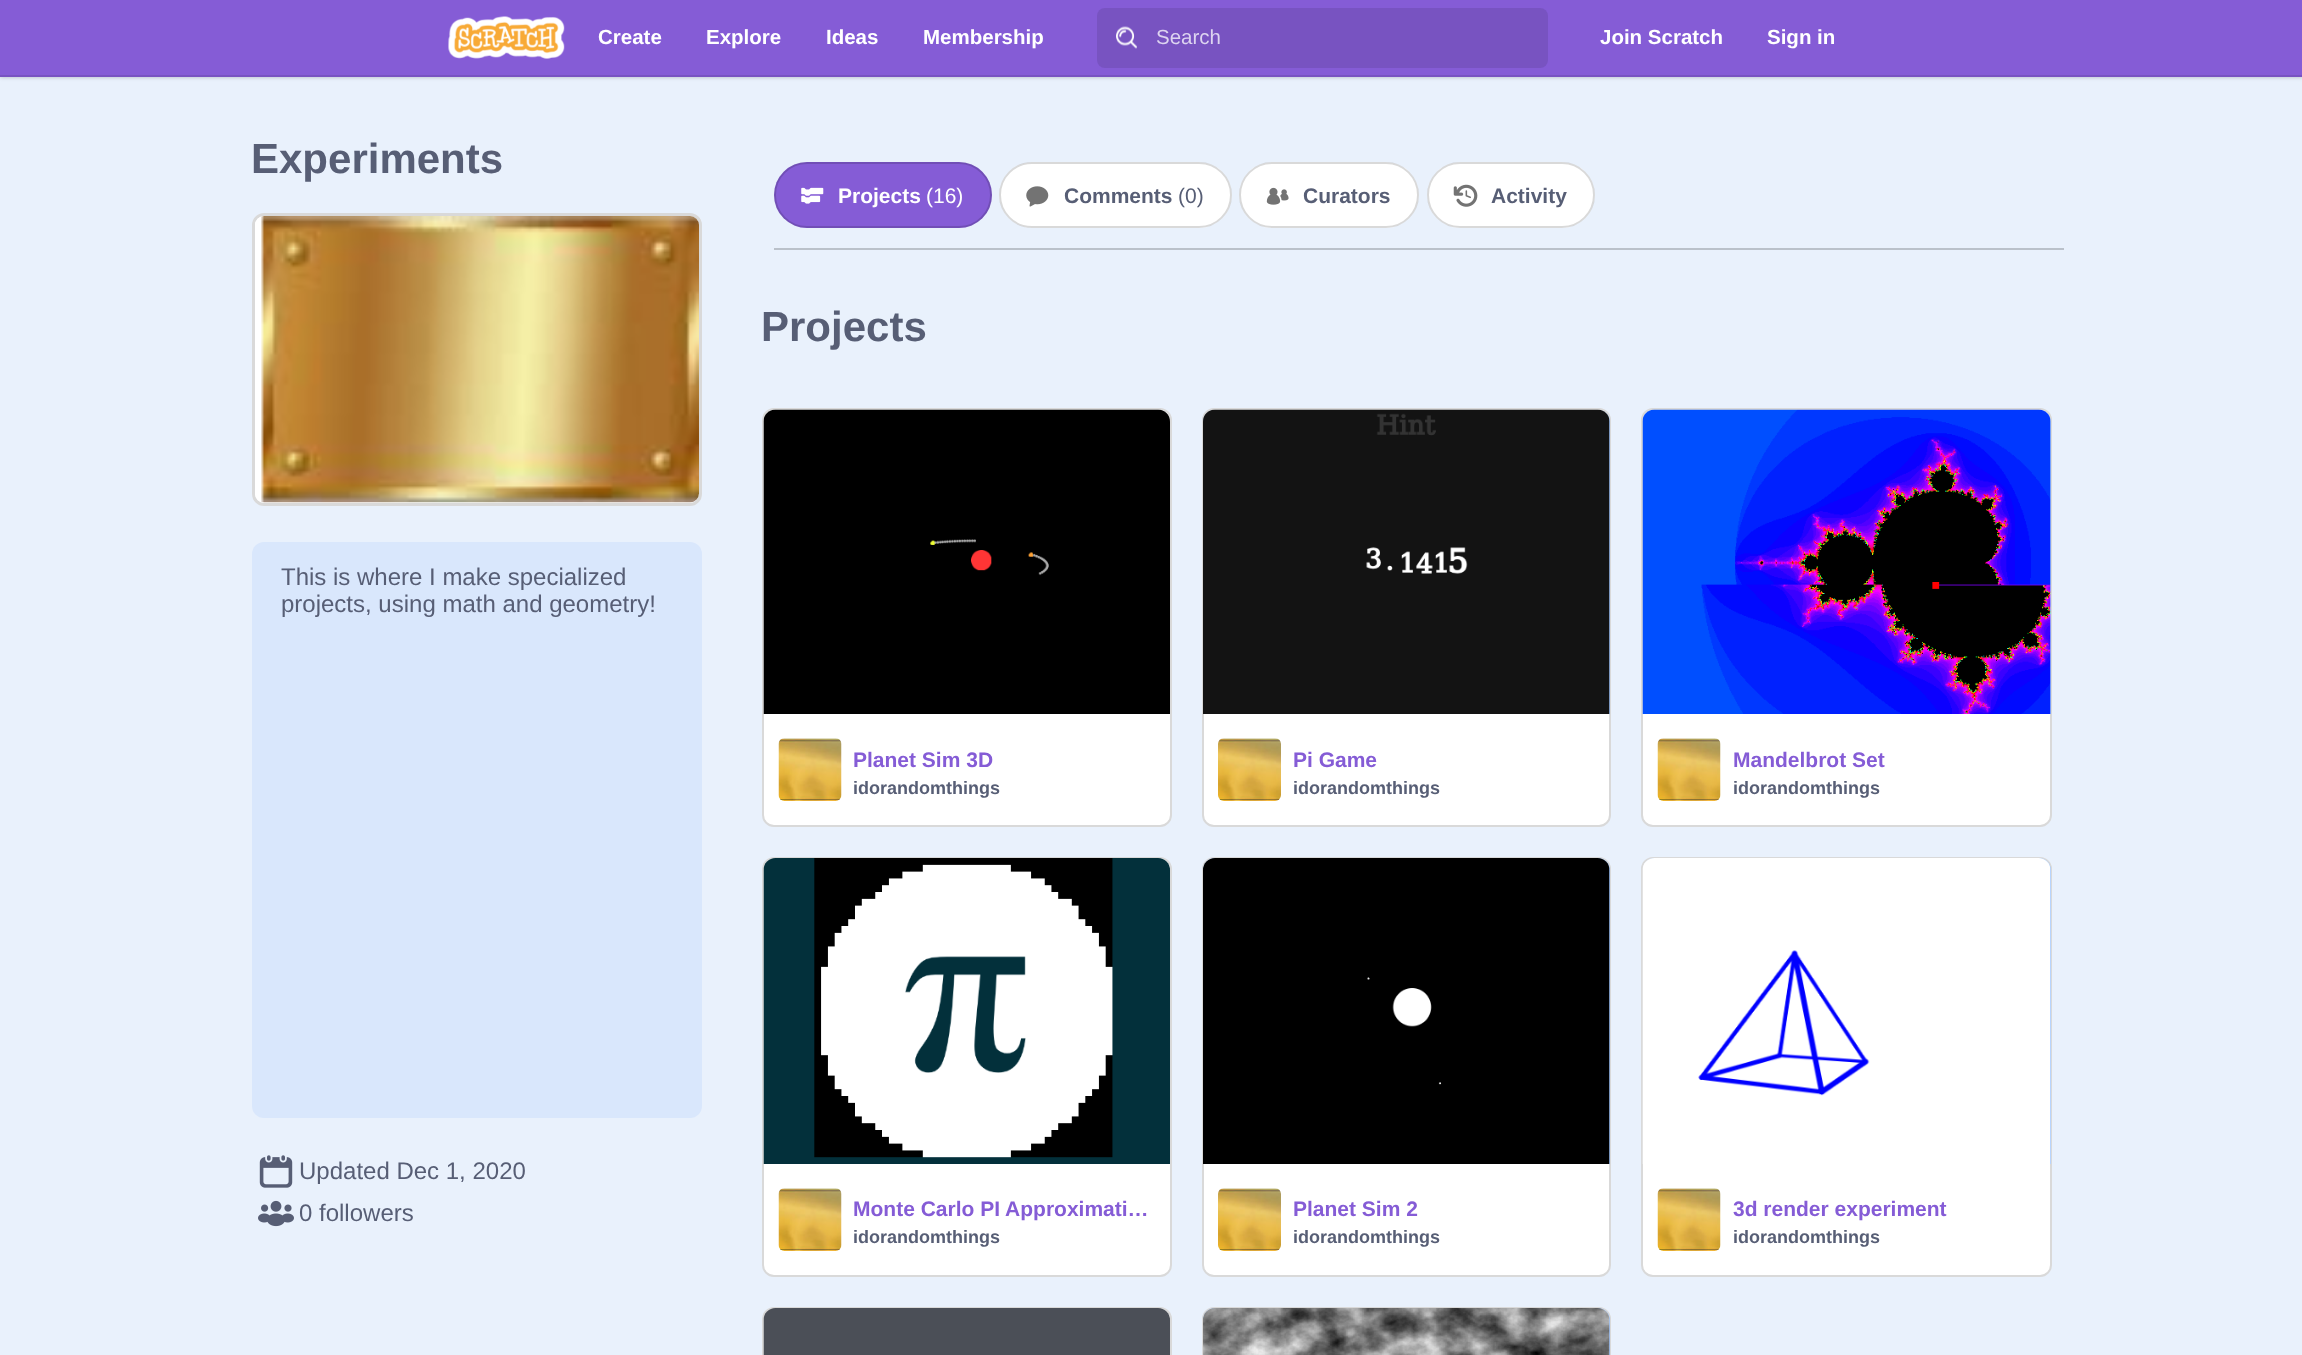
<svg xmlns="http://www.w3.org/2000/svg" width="2302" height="1355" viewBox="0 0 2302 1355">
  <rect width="100%" height="100%" fill="#e9f1fc"/>
  <path d="M0 0h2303v77H0z" fill="#00000040" filter="blur(2px)"/>
  <path d="M0 0h2302v75H0z" fill="#855cd6"/>
  <path d="M0 75h2302v2H0z" fill="#7853c1"/>
  <image x="448" y="16" width="117" height="43" href="img/1.png"/>
  <rect x="1097" y="8" width="451" height="60" rx="8" fill="#7853c1"/>
  <image x="1116" y="26" width="21" height="23" href="img/2.png"/>
  <rect x="252" y="213" width="450" height="293" rx="12" fill="#fff"/>
  <rect x="253.5" y="214.5" width="447" height="290" rx="10.5" fill="none" stroke="#00000026" stroke-width="3"/>
  <image x="255" y="216" width="444" height="287" href="img/3.png"/>
  <rect x="252" y="542" width="450" height="576" rx="12" fill="#d9e7fc"/>
  <image x="259" y="1155" width="34" height="33" href="img/4.png"/>
  <image x="258" y="1200" width="36" height="27" href="img/5.png"/>
  <path d="M774 248h1290v2H774z" fill="#bac1ca"/>
  <rect x="774" y="162" width="218" height="66" rx="33" fill="#855cd6"/>
  <rect x="775" y="163" width="216" height="64" rx="32" fill="none" stroke="#00000026" stroke-width="2"/>
  <image x="801" y="187" width="23" height="17" href="img/6.png"/>
  <rect x="999" y="162" width="233" height="66" rx="33" fill="#fff"/>
  <rect x="1000" y="163" width="231" height="64" rx="32" fill="none" stroke="#00000026" stroke-width="2"/>
  <image x="1026" y="186" width="23" height="21" href="img/7.png"/>
  <rect x="1239" y="162" width="180" height="66" rx="33" fill="#fff"/>
  <rect x="1240" y="163" width="178" height="64" rx="32" fill="none" stroke="#00000026" stroke-width="2"/>
  <image x="1266" y="187" width="23" height="18" href="img/8.png"/>
  <rect x="1427" y="162" width="168" height="66" rx="33" fill="#fff"/>
  <rect x="1428" y="163" width="166" height="64" rx="32" fill="none" stroke="#00000026" stroke-width="2"/>
  <image x="1453" y="184" width="25" height="23" href="img/9.png"/>
  <rect x="763" y="409" width="408" height="417" rx="11" fill="#fff" stroke="#d9d9d9" stroke-width="2"/>
  <image x="763" y="409" width="407" height="305" href="img/10.png"/>
  <image x="778" y="738" width="64" height="63" href="img/11.png"/>
  <rect x="1203" y="409" width="407" height="417" rx="11" fill="#fff" stroke="#d9d9d9" stroke-width="2"/>
  <path d="M1215 410H1598C1604.5 410 1610 415.5 1610 422V714H1203V422C1203 415.5 1208.5 410 1215 410Z" fill="#a0c6fc"/>
  <image x="1203" y="409" width="407" height="305" href="img/12.png"/>
  <image x="1218" y="738" width="63" height="63" href="img/13.png"/>
  <rect x="1642" y="409" width="409" height="417" rx="11" fill="#fff" stroke="#d9d9d9" stroke-width="2"/>
  <path d="M1655 410H2039C2045.5 410 2051 415.5 2051 422V714H1643V422C1643 415.5 1648.5 410 1655 410Z" fill="#a0c6fc"/>
  <image x="1642" y="409" width="409" height="305" href="img/14.png"/>
  <image x="1657" y="738" width="64" height="63" href="img/15.png"/>
  <rect x="763" y="858" width="408" height="418" rx="11" fill="#fff" stroke="#d9d9d9" stroke-width="2"/>
  <image x="763" y="858" width="407" height="306" href="img/16.png"/>
  <image x="778" y="1188" width="64" height="63" href="img/11.png"/>
  <rect x="1203" y="858" width="407" height="418" rx="11" fill="#fff" stroke="#d9d9d9" stroke-width="2"/>
  <path d="M1215 858H1598C1604.5 858 1610 863.5 1610 870V1164H1203V870C1203 863.5 1208.5 858 1215 858Z" fill="#a0c6fc"/>
  <image x="1203" y="858" width="407" height="306" href="img/17.png"/>
  <image x="1218" y="1188" width="63" height="63" href="img/13.png"/>
  <rect x="1642" y="858" width="409" height="418" rx="11" fill="#fff" stroke="#d9d9d9" stroke-width="2"/>
  <path d="M1655 858H2039C2045.5 858 2051 863.5 2051 870V1164H1643V870C1643 863.5 1648.5 858 1655 858Z" fill="#a0c6fc"/>
  <image x="1642" y="858" width="409" height="306" href="img/18.png"/>
  <image x="1657" y="1188" width="64" height="63" href="img/15.png"/>
  <rect x="763" y="1308" width="408" height="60" rx="11" fill="#fff" stroke="#d9d9d9" stroke-width="2"/>
  <image x="763" y="1308" width="407" height="47" href="img/19.png"/>
  <rect x="1203" y="1308" width="407" height="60" rx="11" fill="none" stroke="#d9d9d9" stroke-width="2"/>
  <path d="M1215 1308H1598C1604.5 1308 1610 1313.5 1610 1320V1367H1203V1320C1203 1313.5 1208.5 1308 1215 1308Z" fill="#a0c6fc"/>
  <image x="1203" y="1308" width="407" height="47" href="img/20.png"/>
  <g font-family="Liberation Sans" font-size="20.5" font-weight="bold" fill="#fff">
    <text x="598" y="44">Create</text>
    <text x="706" y="44">Explore</text>
    <text x="826" y="44">Ideas</text>
    <text x="923" y="44">Membership</text>
  </g>
  <text x="1156" y="44" font-family="Liberation Sans" font-size="20.5" fill="#ddd4f0">Search</text>
  <g font-family="Liberation Sans" font-size="20.5" font-weight="bold" fill="#fff">
    <text x="1600" y="44">Join Scratch</text>
    <text x="1767" y="44">Sign in</text>
  </g>
  <text x="251" y="173" font-family="Liberation Sans" font-size="42" font-weight="bold" fill="#575e75">Experiments</text>
  <g font-family="Liberation Sans" font-size="24" fill="#575e75">
    <text x="281" y="585">This is where I make specialized</text>
    <text x="281" y="612">projects, using math and geometry!</text>
    <text x="299" y="1179">Updated Dec 1, 2020</text>
    <text x="299" y="1221">0 followers</text>
  </g>
  <text x="838" y="203" font-family="Liberation Sans" font-size="21" font-weight="bold" fill="#fff">Projects</text>
  <text x="926" y="203" font-family="Liberation Sans" font-size="21" fill="#fff">(16)</text>
  <text x="1064" y="203" font-family="Liberation Sans" font-size="21" font-weight="bold" fill="#575e75">Comments</text>
  <text x="1178" y="203" font-family="Liberation Sans" font-size="21" fill="#575e75">(0)</text>
  <g font-family="Liberation Sans" font-size="21" font-weight="bold" fill="#575e75">
    <text x="1303" y="203">Curators</text>
    <text x="1491" y="203">Activity</text>
  </g>
  <text x="761" y="341" font-family="Liberation Sans" font-size="42" font-weight="bold" fill="#575e75">Projects</text>
  <text x="853" y="767" font-family="Liberation Sans" font-size="21" font-weight="bold" fill="#855cd6">Planet Sim 3D</text>
  <text x="853" y="794" font-family="Liberation Sans" font-size="18" font-weight="bold" fill="#575e75">idorandomthings</text>
  <text x="1293" y="767" font-family="Liberation Sans" font-size="21" font-weight="bold" fill="#855cd6">Pi Game</text>
  <text x="1293" y="794" font-family="Liberation Sans" font-size="18" font-weight="bold" fill="#575e75">idorandomthings</text>
  <text x="1733" y="767" font-family="Liberation Sans" font-size="21" font-weight="bold" fill="#855cd6">Mandelbrot Set</text>
  <text x="1733" y="794" font-family="Liberation Sans" font-size="18" font-weight="bold" fill="#575e75">idorandomthings</text>
  <text x="853" y="1216" font-family="Liberation Sans" font-size="21" font-weight="bold" fill="#855cd6">Monte Carlo PI Approximati…</text>
  <text x="853" y="1243" font-family="Liberation Sans" font-size="18" font-weight="bold" fill="#575e75">idorandomthings</text>
  <text x="1293" y="1216" font-family="Liberation Sans" font-size="21" font-weight="bold" fill="#855cd6">Planet Sim 2</text>
  <text x="1293" y="1243" font-family="Liberation Sans" font-size="18" font-weight="bold" fill="#575e75">idorandomthings</text>
  <text x="1733" y="1216" font-family="Liberation Sans" font-size="21" font-weight="bold" fill="#855cd6">3d render experiment</text>
  <text x="1733" y="1243" font-family="Liberation Sans" font-size="18" font-weight="bold" fill="#575e75">idorandomthings</text>
</svg>
